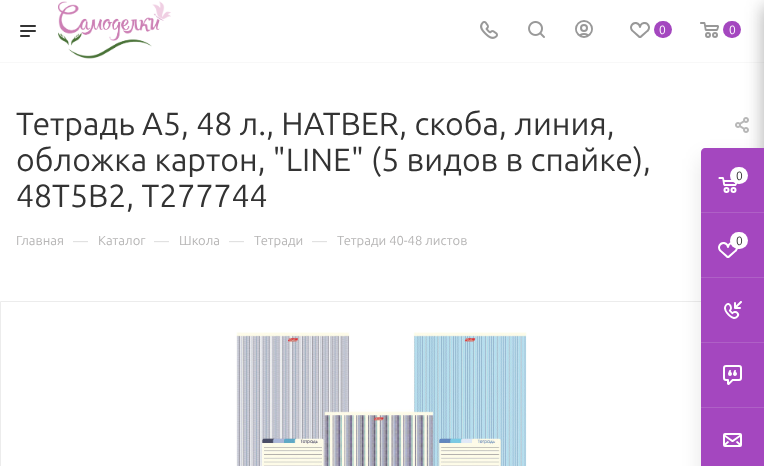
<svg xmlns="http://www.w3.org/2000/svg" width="764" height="466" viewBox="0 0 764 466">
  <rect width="100%" height="100%" fill="#fff"/>
  <path d="M0 62h764v1H0z" fill="#f8f8f8"/>
  <image x="20" y="25" width="16" height="12" href="img/1.png"/>
  <image x="58" y="1" width="113" height="58" href="img/2.png"/>
  <image x="480" y="21" width="18" height="18" href="img/3.png"/>
  <image x="528" y="21" width="17" height="17" href="img/4.png"/>
  <image x="575" y="20" width="18" height="18" href="img/5.png"/>
  <image x="630" y="22" width="20" height="16" href="img/6.png"/>
  <rect x="654" y="21" width="18" height="17" rx="8.5" fill="#a447bf"/>
  <image x="700" y="22" width="19" height="16" href="img/7.png"/>
  <rect x="723" y="21" width="18" height="17" rx="8.5" fill="#a447bf"/>
  <image x="735" y="117" width="14" height="16" href="img/8.png"/>
  <path d="M0.5 301.5h763v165H0.5z" fill="none" stroke="#ececec"/>
  <image x="236" y="332" width="291" height="134" href="img/9.png"/>
  <rect x="764" y="6" width="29" height="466" rx="2" fill="#2c2c2c66" filter="blur(9px)"/>
  <rect x="701" y="158" width="63" height="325" rx="4" fill="#0000001a" filter="blur(10px)"/>
  <path d="M705 148H764V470H705C703 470 701 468 701 466V152C701 150 703 148 705 148Z" fill="#a447bf"/>
  <path d="M701 212h63v1H701z" fill="#af60c6"/>
  <image x="718" y="177" width="20" height="16" href="img/10.png"/>
  <rect x="730" y="167" width="18" height="17" rx="8.5" fill="#fff"/>
  <path d="M701 277h63v1H701z" fill="#af60c6"/>
  <image x="718" y="242" width="20" height="16" href="img/11.png"/>
  <rect x="730" y="232" width="18" height="17" rx="8.5" fill="#fff"/>
  <path d="M701 342h63v1H701z" fill="#af60c6"/>
  <image x="724" y="301" width="18" height="18" href="img/12.png"/>
  <path d="M701 407h63v1H701z" fill="#af60c6"/>
  <image x="723" y="365" width="19" height="20" href="img/13.png"/>
  <image x="723" y="433" width="19" height="14" href="img/14.png"/>
  <g font-family="Ubuntu" font-size="12" fill="#fff">
    <text x="659" y="34">0</text>
    <text x="729" y="34">0</text>
  </g>
  <g font-family="Ubuntu" font-size="32" fill="#333">
    <text x="16" y="135">Тетрадь А5, 48 л., HATBER, скоба, линия,</text>
    <text x="16" y="171">обложка картон, "LINE" (5 видов в спайке),</text>
    <text x="16" y="207">48Т5В2, T277744</text>
  </g>
  <text x="16" y="245" font-family="Ubuntu" font-size="13" fill="#b6b5b5">Главная</text>
  <text x="73" y="246" font-family="Ubuntu" font-size="15" fill="#ddd">—</text>
  <text x="98" y="245" font-family="Ubuntu" font-size="13" fill="#b6b5b5">Каталог</text>
  <text x="154" y="246" font-family="Ubuntu" font-size="15" fill="#ddd">—</text>
  <text x="179" y="245" font-family="Ubuntu" font-size="13" fill="#b6b5b5">Школа</text>
  <text x="229" y="246" font-family="Ubuntu" font-size="15" fill="#ddd">—</text>
  <text x="254" y="245" font-family="Ubuntu" font-size="13" fill="#b6b5b5">Тетради</text>
  <text x="312" y="246" font-family="Ubuntu" font-size="15" fill="#ddd">—</text>
  <text x="337" y="245" font-family="Ubuntu" font-size="13" fill="#b6b5b5">Тетради 40-48 листов</text>
  <g font-family="Ubuntu" font-size="12" fill="#333">
    <text x="736" y="180">0</text>
    <text x="736" y="245">0</text>
  </g>
</svg>
